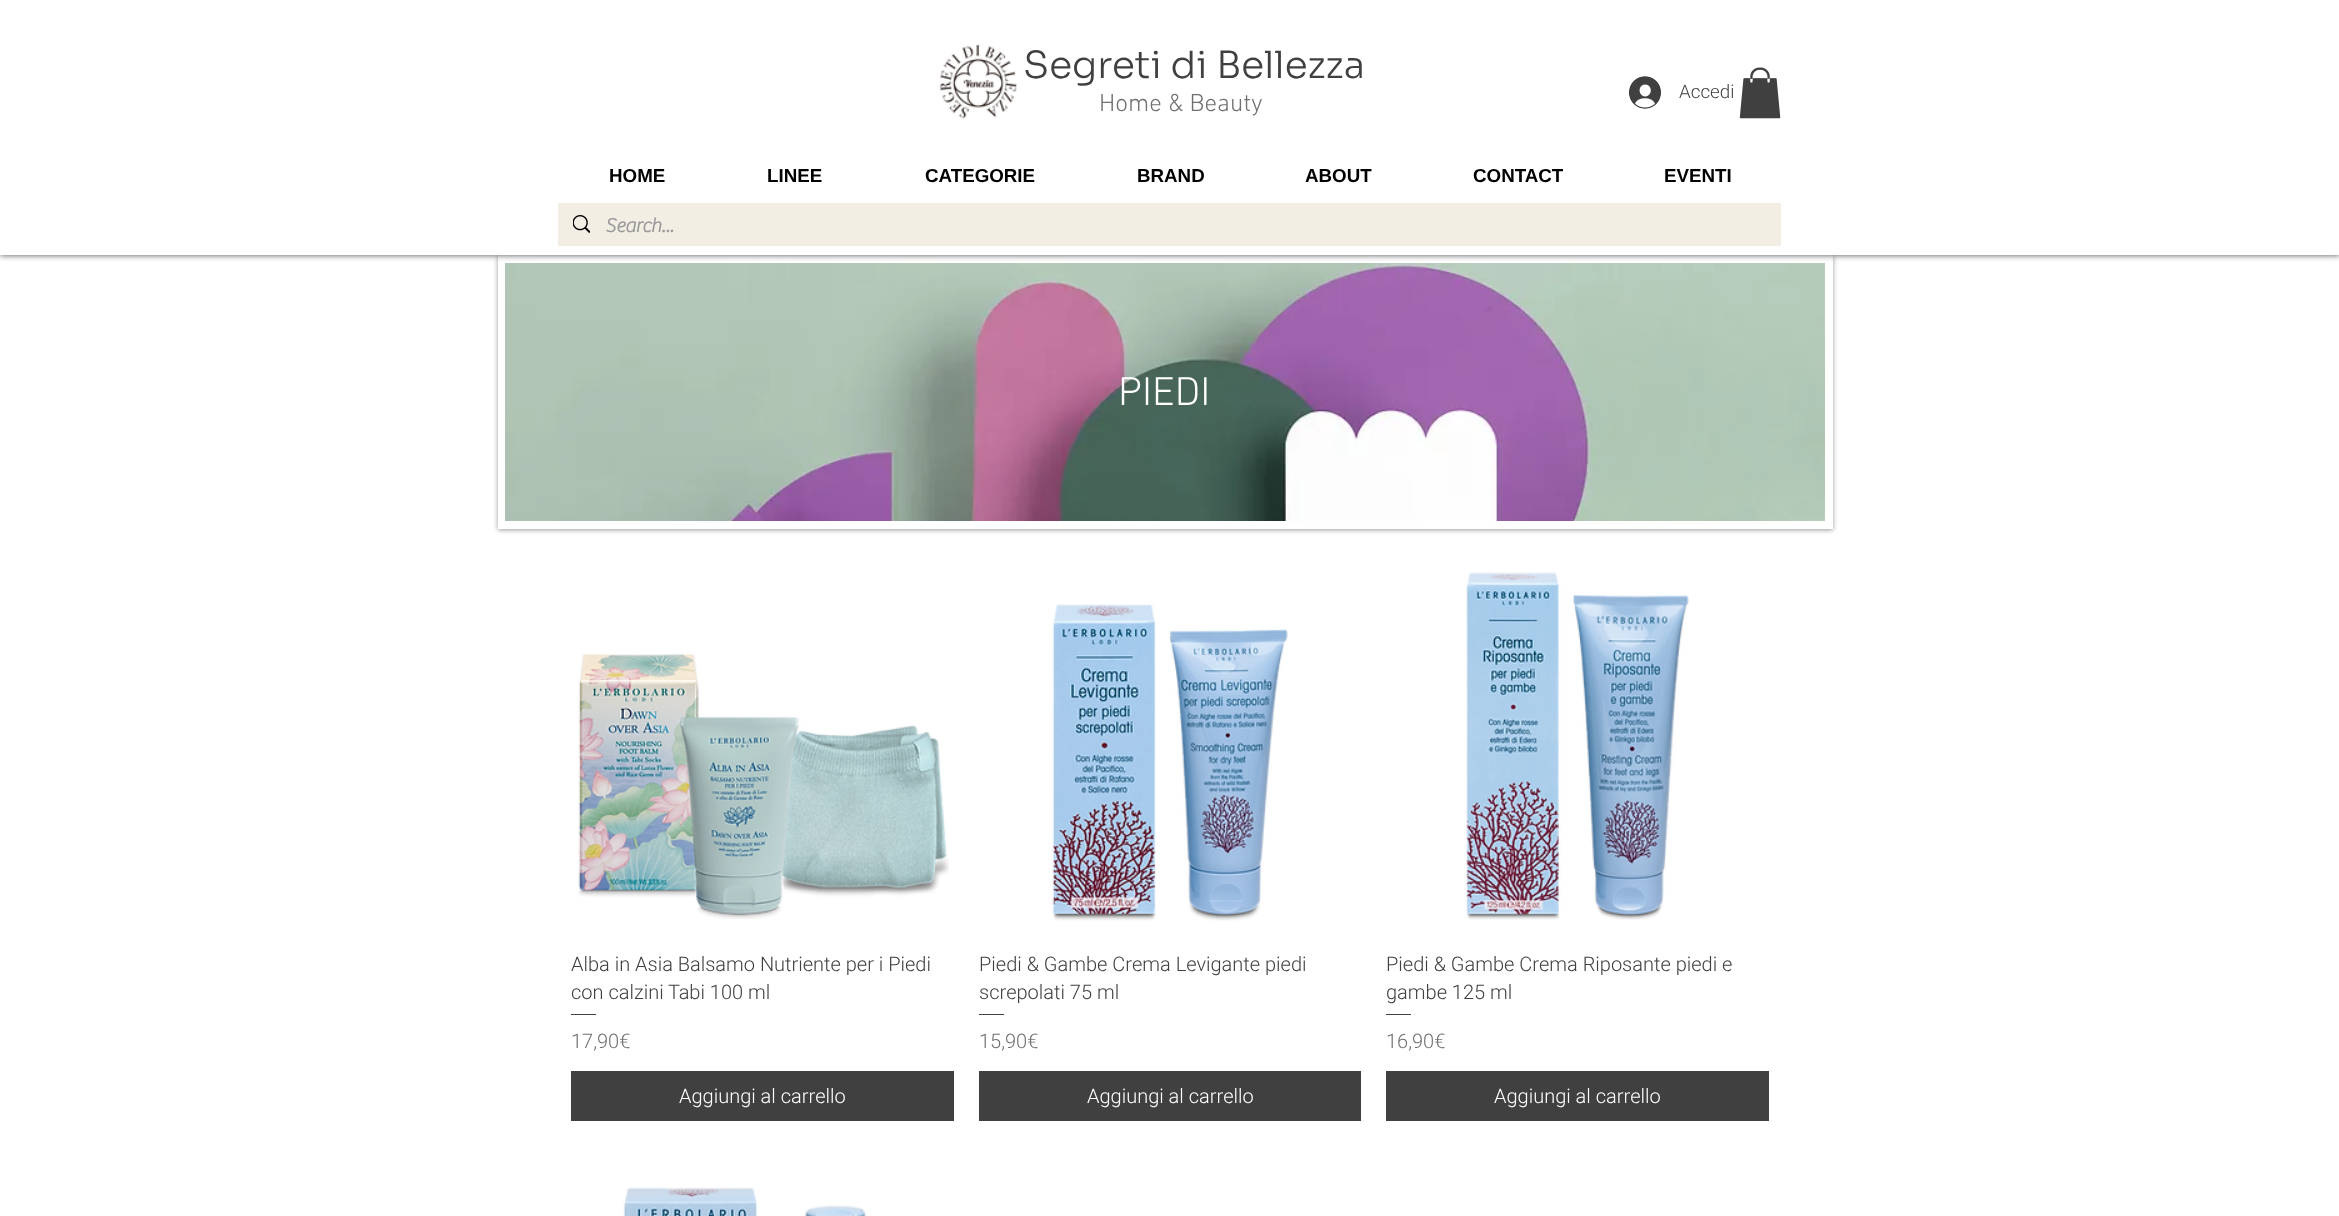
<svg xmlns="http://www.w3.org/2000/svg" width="2339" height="1216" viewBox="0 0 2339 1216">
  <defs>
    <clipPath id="clip1"><path d="M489 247H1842V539H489ZM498 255H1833V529H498Z" clip-rule="evenodd"/></clipPath>
  </defs>
  <rect width="100%" height="100%" fill="#fff"/>
  <g clip-path="url(#clip1)">
    <path d="M498 256h1335v274H498z" fill="#00000066" filter="blur(2.5px)"/>
  </g>
  <path d="M498 255h1335v274H498z" fill="#ffffffe3"/>
  <path d="M502 259h1327v266H502z" fill="none" stroke="#ffffffe3" stroke-width="8"/>
  <image x="505" y="263" width="1320" height="258" href="img/5.png"/>
  <path d="M0 0h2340v255H0z" fill="#000000b3" filter="blur(3px)"/>
  <path d="M0 0h2339v255H0z" fill="#fff"/>
  <image x="939" y="44" width="78" height="75" href="img/1.png"/>
  <image x="1629" y="76" width="32" height="33" href="img/2.png"/>
  <image x="1739" y="67" width="42" height="52" href="img/3.png"/>
  <path d="M558 203h1223v43H558z" fill="#f2eee4"/>
  <image x="573" y="215" width="17" height="18" href="img/4.png"/>
  <image x="578" y="653" width="371" height="266" href="img/6.png"/>
  <path d="M571 1014h25v1H571z" fill="#404041"/>
  <path d="M571 1071h383v50H571z" fill="#404041"/>
  <image x="1052" y="604" width="236" height="317" href="img/7.png"/>
  <path d="M979 1014h25v1H979z" fill="#404041"/>
  <path d="M979 1071h382v50H979z" fill="#404041"/>
  <image x="1466" y="572" width="223" height="348" href="img/8.png"/>
  <path d="M1386 1014h25v1H1386z" fill="#404041"/>
  <path d="M1386 1071h383v50H1386z" fill="#404041"/>
  <image x="623" y="1187" width="244" height="29" href="img/9.png"/>
  <text x="1023" y="78" font-family="Sora" font-size="37.5" font-weight="300" fill="#404041">Segreti di Bellezza</text>
  <text x="1099" y="111" font-family="'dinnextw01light'" font-size="25" font-weight="300" fill="#707071">Home &amp; Beauty</text>
  <text x="1679" y="98" font-family="Heebo" font-size="18.75" font-weight="300" fill="#404041">Accedi</text>
  <g font-family="Liberation Sans" font-size="18.75" font-weight="bold" fill="#000">
    <text x="609" y="182">HOME</text>
    <text x="767" y="182">LINEE</text>
    <text x="925" y="182">CATEGORIE</text>
    <text x="1137" y="182">BRAND</text>
    <text x="1305" y="182">ABOUT</text>
    <text x="1473" y="182">CONTACT</text>
    <text x="1664" y="182">EVENTI</text>
  </g>
  <text x="605" y="232" font-family="'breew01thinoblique'" font-size="20" font-weight="bold" fill="#999">Search...</text>
  <text x="1118" y="405" font-family="'dinnextw01light'" font-size="41" font-weight="300" fill="#fff">PIEDI</text>
  <g font-family="Heebo" font-size="20" font-weight="300" fill="#404041">
    <text x="571" y="971">Alba in Asia Balsamo Nutriente per i Piedi</text>
    <text x="571" y="999">con calzini Tabi 100 ml</text>
  </g>
  <text x="571" y="1048" font-family="Heebo" font-size="20" font-weight="300" fill="#707071">17,90€</text>
  <text x="679" y="1103" font-family="Heebo" font-size="20" font-weight="300" fill="#fff">Aggiungi al carrello</text>
  <g font-family="Heebo" font-size="20" font-weight="300" fill="#404041">
    <text x="979" y="971">Piedi &amp; Gambe Crema Levigante piedi</text>
    <text x="979" y="999">screpolati 75 ml</text>
  </g>
  <text x="979" y="1048" font-family="Heebo" font-size="20" font-weight="300" fill="#707071">15,90€</text>
  <text x="1087" y="1103" font-family="Heebo" font-size="20" font-weight="300" fill="#fff">Aggiungi al carrello</text>
  <g font-family="Heebo" font-size="20" font-weight="300" fill="#404041">
    <text x="1386" y="971">Piedi &amp; Gambe Crema Riposante piedi e</text>
    <text x="1386" y="999">gambe 125 ml</text>
  </g>
  <text x="1386" y="1048" font-family="Heebo" font-size="20" font-weight="300" fill="#707071">16,90€</text>
  <text x="1494" y="1103" font-family="Heebo" font-size="20" font-weight="300" fill="#fff">Aggiungi al carrello</text>
</svg>
